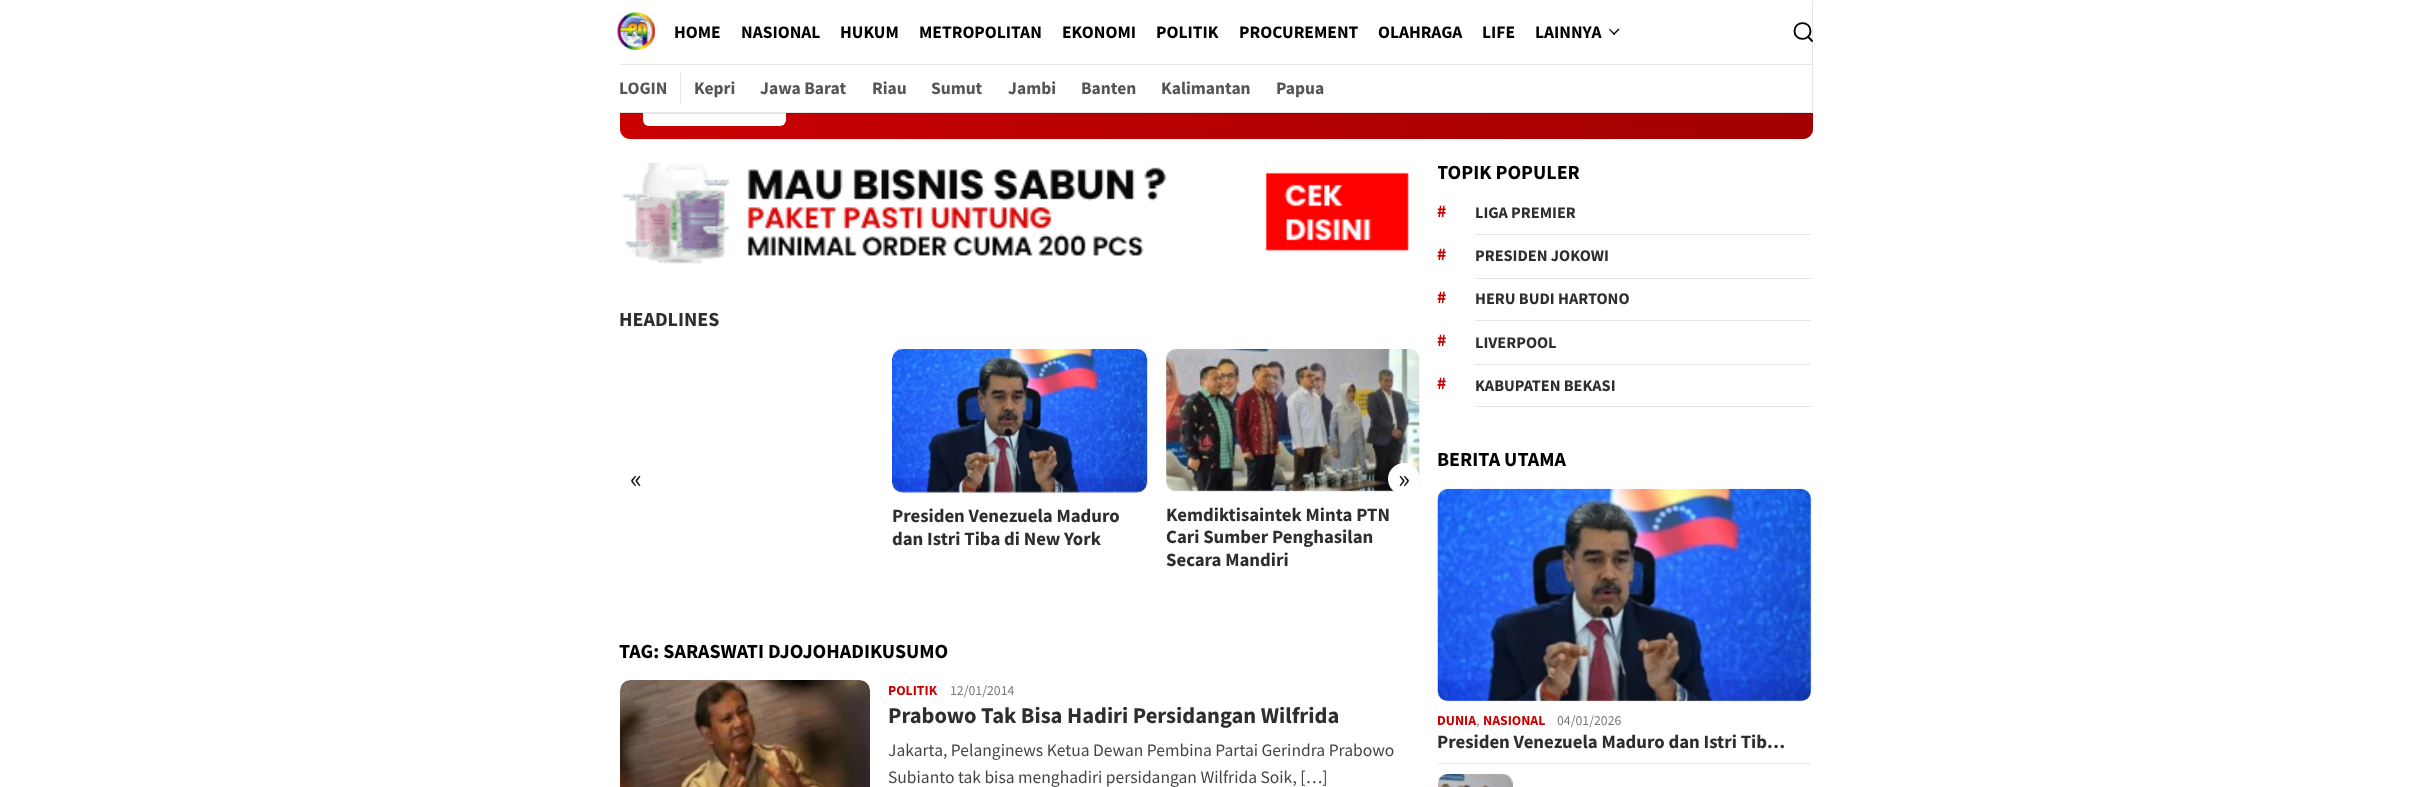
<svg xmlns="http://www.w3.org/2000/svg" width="2431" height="787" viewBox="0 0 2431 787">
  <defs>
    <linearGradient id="g1" gradientUnits="userSpaceOnUse" x1="620" y1="111" x2="1813" y2="111"><stop offset="0" stop-color="#000" stop-opacity="0"/><stop offset="1" stop-color="#000" stop-opacity="0.2"/></linearGradient>
    <clipPath id="clip1"><path d="M1438 161h373v23H1438z"/></clipPath>
  </defs>
  <rect width="100%" height="100%" fill="#fff"/>
  <path d="M620 84H1813V129C1813 134.5 1808.5 139 1803 139H630C624.5 139 620 134.5 620 129Z" fill="#ca0000"/>
  <path d="M620 84H1813V129C1813 134.5 1808.5 139 1803 139H630C624.5 139 620 134.5 620 129Z" fill="url(#g1)"/>
  <rect x="643" y="96" width="143" height="30" rx="6" fill="#fff"/>
  <path d="M620 84h1193v29H620z" fill="#fff"/>
  <path d="M620 64V65H1813V1H1812V64Z" fill="#e6e6e6"/>
  <image x="617" y="12" width="38" height="38" href="img/1.png"/>
  <path d="M1618.5 28.5L1619.5 29.5L1614 35L1613 34Z" fill="#000"/>
  <path d="M1609.5 28.5L1615 34L1614 35L1609 29.5Z" fill="#000"/>
  <path d="M1812 41L1808 36.5M1810.5 31C1810.5 41.5 1794.5 41.5 1794.5 31C1794.5 20.5 1810.5 20.5 1810.5 31Z" fill="none" stroke="#000" stroke-width="1.9" stroke-linecap="round"/>
  <path d="M620 112V114H1813V65H1812V112Z" fill="#0000001a"/>
  <path d="M680 73h1v31H680z" fill="#e6e6e6"/>
  <image x="621" y="162" width="788" height="102" href="img/2.png"/>
  <image x="1166" y="349" width="254" height="143" href="img/4.png"/>
  <circle cx="1404" cy="479" r="16" fill="#fff"/>
  <image x="892" y="349" width="256" height="144" href="img/3.png"/>
  <image x="620" y="680" width="250" height="107" href="img/5.png"/>
  <path d="M1475 234h336v1H1475z" fill="#e5e5e5"/>
  <path d="M1475 278h336v1H1475z" fill="#e5e5e5"/>
  <path d="M1475 320h336v1H1475z" fill="#e5e5e5"/>
  <path d="M1475 364h336v1H1475z" fill="#e5e5e5"/>
  <path d="M1475 406h336v1H1475z" fill="#e5e5e5"/>
  <path d="M1438 763h373v1H1438z" fill="#e9e9e9"/>
  <image x="1437" y="488" width="375" height="214" href="img/6.png"/>
  <image x="1438" y="774" width="75" height="13" href="img/7.png"/>
  <g font-family="Source Sans Pro" font-size="17.5" font-weight="bold" fill="#000">
    <text x="674" y="38">HOME</text>
    <text x="741" y="38">NASIONAL</text>
    <text x="840" y="38">HUKUM</text>
    <text x="919" y="38">METROPOLITAN</text>
    <text x="1062" y="38">EKONOMI</text>
    <text x="1156" y="38">POLITIK</text>
    <text x="1239" y="38">PROCUREMENT</text>
    <text x="1378" y="38">OLAHRAGA</text>
    <text x="1482" y="38">LIFE</text>
    <text x="1535" y="38">LAINNYA</text>
  </g>
  <g font-family="Source Sans Pro" font-size="17.5" font-weight="bold" fill="#555">
    <text x="619" y="94">LOGIN</text>
    <text x="694" y="94">Kepri</text>
    <text x="760" y="94">Jawa Barat</text>
    <text x="872" y="94">Riau</text>
    <text x="931" y="94">Sumut</text>
    <text x="1008" y="94">Jambi</text>
    <text x="1081" y="94">Banten</text>
    <text x="1161" y="94">Kalimantan</text>
    <text x="1276" y="94">Papua</text>
  </g>
  <text x="619" y="326" font-family="Source Sans Pro" font-size="20" font-weight="bold" fill="#2e2e2e">HEADLINES</text>
  <g font-family="Source Sans Pro" font-size="28" fill="#111">
    <text x="630" y="488">«</text>
    <text x="1398" y="488">»</text>
  </g>
  <g font-family="Source Sans Pro" font-size="18.75" font-weight="bold" fill="#2e2e2e">
    <text x="892" y="522">Presiden Venezuela Maduro</text>
    <text x="892" y="545">dan Istri Tiba di New York</text>
    <text x="1166" y="521">Kemdiktisaintek Minta PTN</text>
    <text x="1166" y="543">Cari Sumber Penghasilan</text>
    <text x="1166" y="566">Secara Mandiri</text>
  </g>
  <text x="619" y="658" font-family="Source Sans Pro" font-size="20" font-weight="bold" fill="#000">TAG: SARASWATI DJOJOHADIKUSUMO</text>
  <text x="888" y="695" font-family="Source Sans Pro" font-size="13.75" font-weight="bold" fill="#ca0000">POLITIK</text>
  <text x="950" y="695" font-family="Source Sans Pro" font-size="13.75" fill="#787878">12/01/2014</text>
  <text x="888" y="723" font-family="Source Sans Pro" font-size="22.5" font-weight="bold" fill="#2e2e2e">Prabowo Tak Bisa Hadiri Persidangan Wilfrida</text>
  <g font-family="Source Sans Pro" font-size="17.5" fill="#444">
    <text x="888" y="756">Jakarta, Pelanginews Ketua Dewan Pembina Partai Gerindra Prabowo</text>
    <text x="888" y="783">Subianto tak bisa menghadiri persidangan Wilfrida Soik, […]</text>
  </g>
  <g clip-path="url(#clip1)">
    <text x="1437" y="179" font-family="Source Sans Pro" font-size="20" font-weight="bold" fill="#000">TOPIK POPULER</text>
  </g>
  <text x="1437" y="217" font-family="Source Sans Pro" font-size="17.5" font-weight="bold" fill="#ca0000">#</text>
  <text x="1475" y="218" font-family="Source Sans Pro" font-size="16.25" font-weight="bold" fill="#2e2e2e">LIGA PREMIER</text>
  <text x="1437" y="260" font-family="Source Sans Pro" font-size="17.5" font-weight="bold" fill="#ca0000">#</text>
  <text x="1475" y="261" font-family="Source Sans Pro" font-size="16.25" font-weight="bold" fill="#2e2e2e">PRESIDEN JOKOWI</text>
  <text x="1437" y="303" font-family="Source Sans Pro" font-size="17.5" font-weight="bold" fill="#ca0000">#</text>
  <text x="1475" y="304" font-family="Source Sans Pro" font-size="16.25" font-weight="bold" fill="#2e2e2e">HERU BUDI HARTONO</text>
  <text x="1437" y="346" font-family="Source Sans Pro" font-size="17.5" font-weight="bold" fill="#ca0000">#</text>
  <text x="1475" y="348" font-family="Source Sans Pro" font-size="16.25" font-weight="bold" fill="#2e2e2e">LIVERPOOL</text>
  <text x="1437" y="389" font-family="Source Sans Pro" font-size="17.5" font-weight="bold" fill="#ca0000">#</text>
  <text x="1475" y="391" font-family="Source Sans Pro" font-size="16.25" font-weight="bold" fill="#2e2e2e">KABUPATEN BEKASI</text>
  <text x="1437" y="466" font-family="Source Sans Pro" font-size="20" font-weight="bold" fill="#000">BERITA UTAMA</text>
  <text x="1437" y="725" font-family="Source Sans Pro" font-size="13.75" font-weight="bold" fill="#ca0000">DUNIA</text>
  <text x="1476" y="725" font-family="Source Sans Pro" font-size="13.75" fill="#787878">,</text>
  <text x="1483" y="725" font-family="Source Sans Pro" font-size="13.75" font-weight="bold" fill="#ca0000">NASIONAL</text>
  <text x="1557" y="725" font-family="Source Sans Pro" font-size="13.75" fill="#787878">04/01/2026</text>
  <text x="1437" y="748" font-family="Source Sans Pro" font-size="18.75" font-weight="bold" fill="#2e2e2e">Presiden Venezuela Maduro dan Istri Tib…</text>
</svg>
